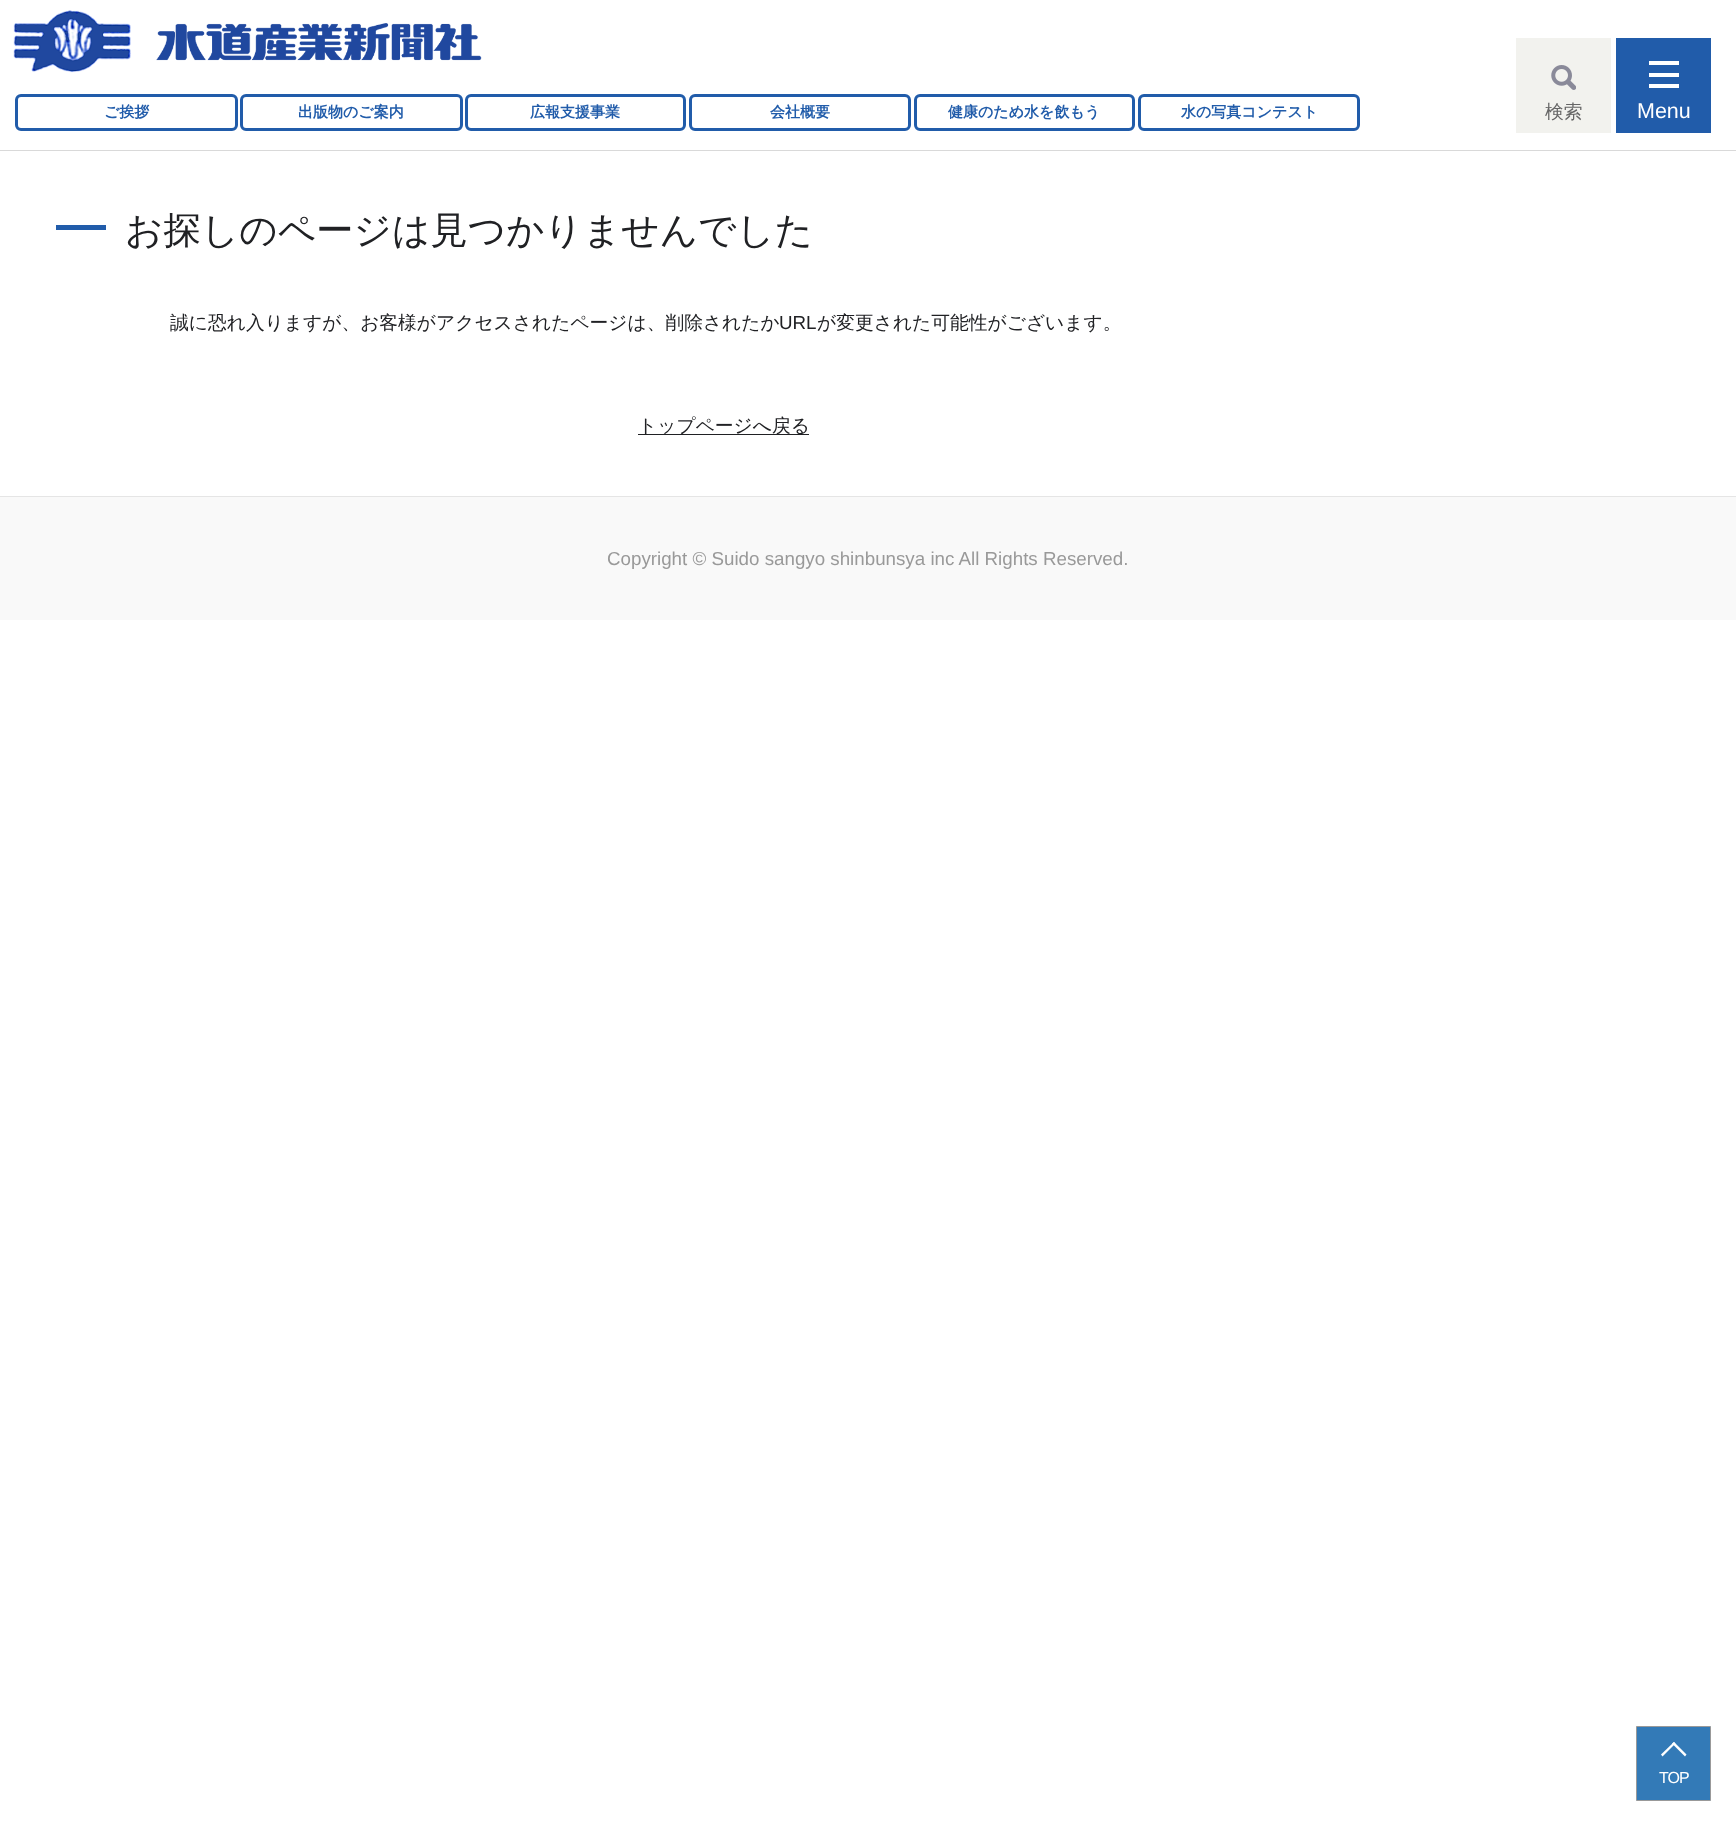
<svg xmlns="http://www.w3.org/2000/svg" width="1736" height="1826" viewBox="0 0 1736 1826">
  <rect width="100%" height="100%" fill="#fff"/>
  <path d="M0 150h1736v1H0z" fill="#d9d9d9"/>
  <image x="13" y="10" width="469" height="63" href="img/1.png"/>
  <rect x="16.5" y="95.5" width="220" height="34" rx="4.5" fill="none" stroke="#215caa" stroke-width="3"/>
  <rect x="241.5" y="95.5" width="220" height="34" rx="4.5" fill="none" stroke="#215caa" stroke-width="3"/>
  <rect x="466.5" y="95.5" width="218" height="34" rx="4.5" fill="none" stroke="#215caa" stroke-width="3"/>
  <rect x="690.5" y="95.5" width="219" height="34" rx="4.5" fill="none" stroke="#215caa" stroke-width="3"/>
  <rect x="915.5" y="95.5" width="218" height="34" rx="4.5" fill="none" stroke="#215caa" stroke-width="3"/>
  <rect x="1139.5" y="95.5" width="219" height="34" rx="4.5" fill="none" stroke="#215caa" stroke-width="3"/>
  <path d="M1516 38h95v95H1516z" fill="#f2f2ee"/>
  <image x="1551" y="65" width="25" height="25" href="img/2.png"/>
  <path d="M1616 38h95v95H1616z" fill="#215caa"/>
  <path d="M1649 61h30v4H1649z" fill="#fff"/>
  <path d="M1649 73h30v4H1649z" fill="#fff"/>
  <path d="M1649 84h30v4H1649z" fill="#fff"/>
  <path d="M56 225h50v5H56z" fill="#215caa"/>
  <path d="M638 434h171v1H638z" fill="#202124"/>
  <path d="M0 497h1736v123H0z" fill="#f9f9f9"/>
  <path d="M0 496h1736v1H0z" fill="#e5e5e5"/>
  <path d="M1636.5 1726.5h74v74H1636.5z" fill="#337ab7" stroke="#999"/>
  <path d="M1661 1754.5L1674 1742L1675.5 1743.5L1662.5 1756.5Z" fill="#fff"/>
  <path d="M1672 1743.5L1674 1742L1686.5 1754.5L1685 1756.5Z" fill="#fff"/>
  <g font-family="WenQuanYi Zen Hei" font-size="15" font-weight="bold" fill="#215caa">
    <text x="104" y="117">ご挨拶</text>
    <text x="298" y="117">出版物のご案内</text>
    <text x="530" y="117">広報支援事業</text>
    <text x="770" y="117">会社概要</text>
    <text x="948" y="117">健康のため水を飲もう</text>
    <text x="1181" y="117">水の写真コンテスト</text>
  </g>
  <text x="1545" y="118" font-family="WenQuanYi Zen Hei" font-size="18.75" font-weight="500" fill="#666">検索</text>
  <text x="1637" y="118" font-family="Liberation Sans" font-size="21.5" fill="#fff">Menu</text>
  <text x="125" y="243" font-family="WenQuanYi Zen Hei" font-size="37.5" font-weight="500" fill="#202124">お探しのページは見つかりませんでした</text>
  <text x="170" y="329" font-family="WenQuanYi Zen Hei" font-size="18.75" font-weight="500" fill="#202124">誠に恐れ入りますが、お客様がアクセスされたページは、削除されたか</text>
  <text x="779" y="329" font-family="Liberation Sans" font-size="18.75" fill="#202124">URL</text>
  <g font-family="WenQuanYi Zen Hei" font-size="18.75" font-weight="500" fill="#202124">
    <text x="817" y="329">が変更された可能性がございます。</text>
    <text x="638" y="432">トップページへ戻る</text>
  </g>
  <text x="607" y="565" font-family="Liberation Sans" font-size="18.75" fill="#999">Copyright © Suido sangyo shinbunsya inc All Rights Reserved.</text>
  <text x="1659" y="1783" font-family="Liberation Sans" font-size="16" letter-spacing="-1" fill="#fff">TOP</text>
</svg>
